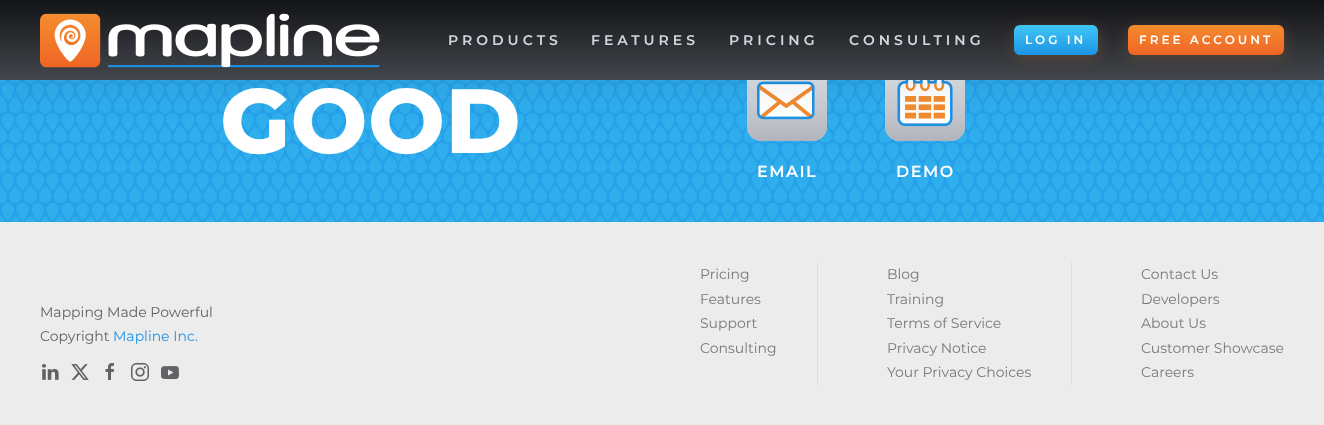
<svg xmlns="http://www.w3.org/2000/svg" width="1324" height="425" viewBox="0 0 1324 425">
  <defs>
    <linearGradient id="g1" gradientUnits="userSpaceOnUse" x1="662" y1="0" x2="662" y2="80"><stop offset="0" stop-color="#131418"/><stop offset="1" stop-color="#43464b"/></linearGradient>
    <linearGradient id="g2" gradientUnits="userSpaceOnUse" x1="1015" y1="25" x2="1015" y2="55"><stop offset="0" stop-color="#3fc7f5"/><stop offset="1" stop-color="#1e93e5"/></linearGradient>
    <linearGradient id="g3" gradientUnits="userSpaceOnUse" x1="1129" y1="25" x2="1129" y2="55"><stop offset="0" stop-color="#f38c2f"/><stop offset="1" stop-color="#f16525"/></linearGradient>
  </defs>
  <rect width="100%" height="100%" fill="#fff"/>
  <image x="0" y="80" width="1324" height="142" href="img/2.png"/>
  <image x="747" y="127" width="80" height="14" href="img/4.png"/>
  <image x="747" y="80" width="80" height="61" href="img/3.png"/>
  <image x="885" y="127" width="80" height="14" href="img/6.png"/>
  <image x="885" y="80" width="80" height="61" href="img/5.png"/>
  <path d="M2 12h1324v80H2z" fill="#0000000f" filter="blur(16px)"/>
  <path d="M0 0h1324v80H0z" fill="url(#g1)"/>
  <image x="40" y="13" width="340" height="55" href="img/1.png"/>
  <rect x="1015" y="28" width="84" height="30" rx="6" fill="#f38c2f33" filter="blur(7.5px)"/>
  <rect x="1014" y="25" width="84" height="30" rx="6" fill="url(#g2)"/>
  <rect x="1129" y="28" width="156" height="30" rx="6" fill="#f38c2f33" filter="blur(7.5px)"/>
  <rect x="1128" y="25" width="156" height="30" rx="6" fill="url(#g3)"/>
  <path d="M0 222h1324v203H0z" fill="#ececec"/>
  <image x="42" y="364" width="17" height="16" href="img/7.png"/>
  <image x="71" y="364" width="18" height="16" href="img/8.png"/>
  <image x="105" y="363" width="9" height="17" href="img/9.png"/>
  <image x="131" y="363" width="18" height="18" href="img/10.png"/>
  <image x="161" y="366" width="18" height="14" href="img/11.png"/>
  <path d="M817 262h1v123H817z" fill="#dedede"/>
  <path d="M1071 262h1v123H1071z" fill="#dedede"/>
  <g font-family="'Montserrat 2'" font-size="14" font-weight="100" letter-spacing="4" fill="#d2d7df">
    <text x="448" y="45">PRODUCTS</text>
    <text x="591" y="45">FEATURES</text>
    <text x="729" y="45">PRICING</text>
    <text x="849" y="45">CONSULTING</text>
  </g>
  <g font-family="'Montserrat 2'" font-size="12" font-weight="100" letter-spacing="3" fill="#fff">
    <text x="1025" y="44">LOG IN</text>
    <text x="1139" y="44">FREE ACCOUNT</text>
  </g>
  <text x="220" y="153" font-family="Montserrat" font-size="91" font-weight="100" letter-spacing="0.5" fill="#fff">GOOD</text>
  <g font-family="'Montserrat 2'" font-size="16" font-weight="100" letter-spacing="1.5" fill="#fff">
    <text x="757" y="177">EMAIL</text>
    <text x="896" y="177">DEMO</text>
  </g>
  <g font-family="'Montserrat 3'" font-size="14" font-weight="100" fill="#606266">
    <text x="40" y="317">Mapping Made Powerful</text>
    <text x="40" y="341">Copyright</text>
  </g>
  <text x="113" y="341" font-family="'Montserrat 3'" font-size="14" font-weight="100" fill="#1e93e5">Mapline Inc.</text>
  <g font-family="'Montserrat 3'" font-size="14" font-weight="100" fill="#76797c">
    <text x="700" y="279">Pricing</text>
    <text x="700" y="304">Features</text>
    <text x="700" y="328">Support</text>
    <text x="700" y="353">Consulting</text>
    <text x="887" y="279">Blog</text>
    <text x="887" y="304">Training</text>
    <text x="887" y="328">Terms of Service</text>
    <text x="887" y="353">Privacy Notice</text>
    <text x="887" y="377">Your Privacy Choices</text>
    <text x="1141" y="279">Contact Us</text>
    <text x="1141" y="304">Developers</text>
    <text x="1141" y="328">About Us</text>
    <text x="1141" y="353">Customer Showcase</text>
    <text x="1141" y="377">Careers</text>
  </g>
</svg>
